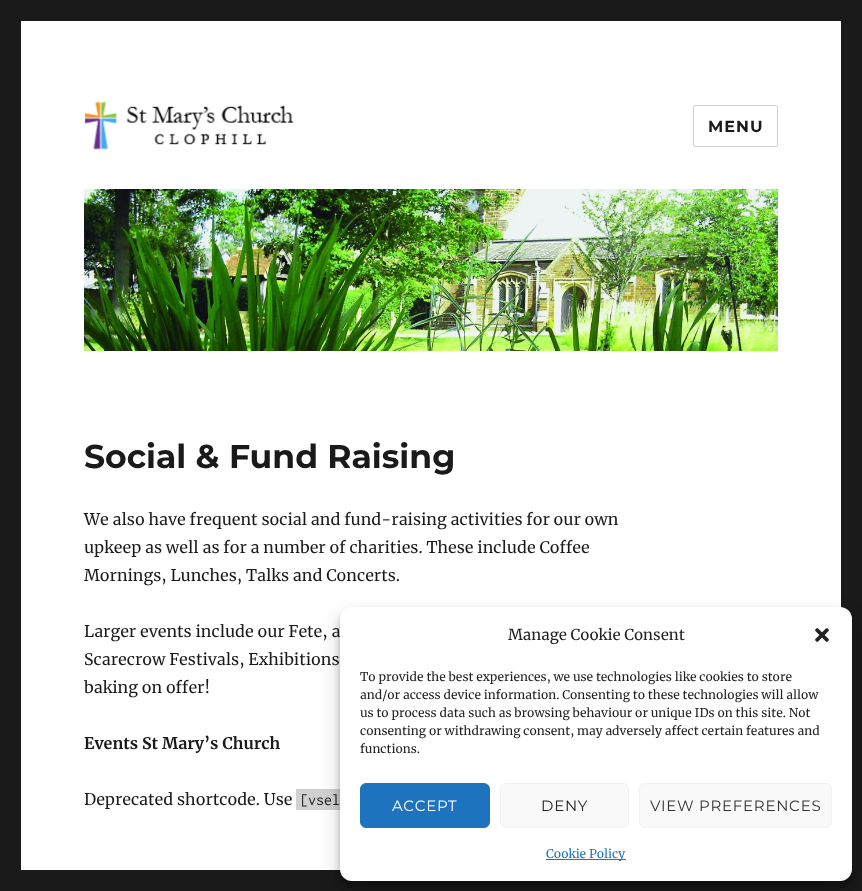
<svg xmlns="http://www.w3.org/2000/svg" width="862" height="891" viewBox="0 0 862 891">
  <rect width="100%" height="100%" fill="#1a1a1a"/>
  <path d="M21 21h820v849H21z" fill="#fff"/>
  <image x="84" y="101" width="210" height="49" href="img/1.png"/>
  <rect x="693.5" y="105.5" width="84" height="41" rx="1.5" fill="none" stroke="#d1d1d1"/>
  <image x="84" y="189" width="694" height="162" href="img/2.png"/>
  <path d="M296 789h44v21H296z" fill="#d1d1d1"/>
  <rect x="340" y="613" width="512" height="274" rx="12" fill="#0000003b" filter="blur(3px)"/>
  <rect x="340" y="617" width="512" height="274" rx="12" fill="#00000030" filter="blur(10px)"/>
  <text x="708" y="132" font-family="Montserrat" font-size="16" font-weight="100" letter-spacing="1" fill="#1a1a1a">MENU</text>
  <text x="84" y="468" font-family="Montserrat" font-size="33" font-weight="100" fill="#1a1a1a">Social &amp; Fund Raising</text>
  <g font-family="Merriweather" font-size="16" fill="#1a1a1a">
    <text x="84" y="525">We also have frequent social and fund-raising activities for our own</text>
    <text x="84" y="553">upkeep as well as for a number of charities. These include Coffee</text>
    <text x="84" y="581">Mornings, Lunches, Talks and Concerts.</text>
    <text x="84" y="637">Larger events include our Fete, a</text>
    <text x="84" y="665">Scarecrow Festivals, Exhibitions</text>
    <text x="84" y="693">baking on offer!</text>
  </g>
  <text x="84" y="749" font-family="Merriweather" font-size="16" font-weight="bold" fill="#1a1a1a">Events St Mary’s Church</text>
  <text x="84" y="805" font-family="Merriweather" font-size="16" fill="#1a1a1a">Deprecated shortcode. Use</text>
  <text x="300" y="805" font-family="Inconsolata" font-size="16" fill="#1a1a1a">[vsel</text>
  <rect x="340" y="607" width="512" height="274" rx="12" fill="#fff"/>
  <text x="508" y="640" font-family="Merriweather" font-size="15" fill="#222">Manage Cookie Consent</text>
  <image x="815" y="628" width="14" height="14" href="img/3.png"/>
  <g font-family="Merriweather" font-size="12" fill="#222">
    <text x="360" y="681">To provide the best experiences, we use technologies like cookies to store</text>
    <text x="360" y="699">and/or access device information. Consenting to these technologies will allow</text>
    <text x="360" y="717">us to process data such as browsing behaviour or unique IDs on this site. Not</text>
    <text x="360" y="735">consenting or withdrawing consent, may adversely affect certain features and</text>
    <text x="360" y="753">functions.</text>
  </g>
  <rect x="360.5" y="783.5" width="129" height="44" rx="5.5" fill="#1e73be" stroke="#1e73be"/>
  <text x="392" y="811" font-family="'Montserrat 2'" font-size="15" font-weight="100" letter-spacing="0.75" fill="#fff">ACCEPT</text>
  <rect x="500.5" y="783.5" width="128" height="44" rx="5.5" fill="#f9f9f9" stroke="#f2f2f2"/>
  <text x="541" y="811" font-family="'Montserrat 2'" font-size="15" font-weight="100" letter-spacing="0.75" fill="#222">DENY</text>
  <rect x="639.5" y="783.5" width="192" height="44" rx="5.5" fill="#f9f9f9" stroke="#f2f2f2"/>
  <text x="650" y="811" font-family="'Montserrat 2'" font-size="15" font-weight="100" letter-spacing="0.75" fill="#333">VIEW PREFERENCES</text>
  <path d="M546 859h80v1H546z" fill="#1e73be"/>
  <text x="546" y="858" font-family="Merriweather" font-size="12" fill="#1e73be">Cookie Policy</text>
</svg>
